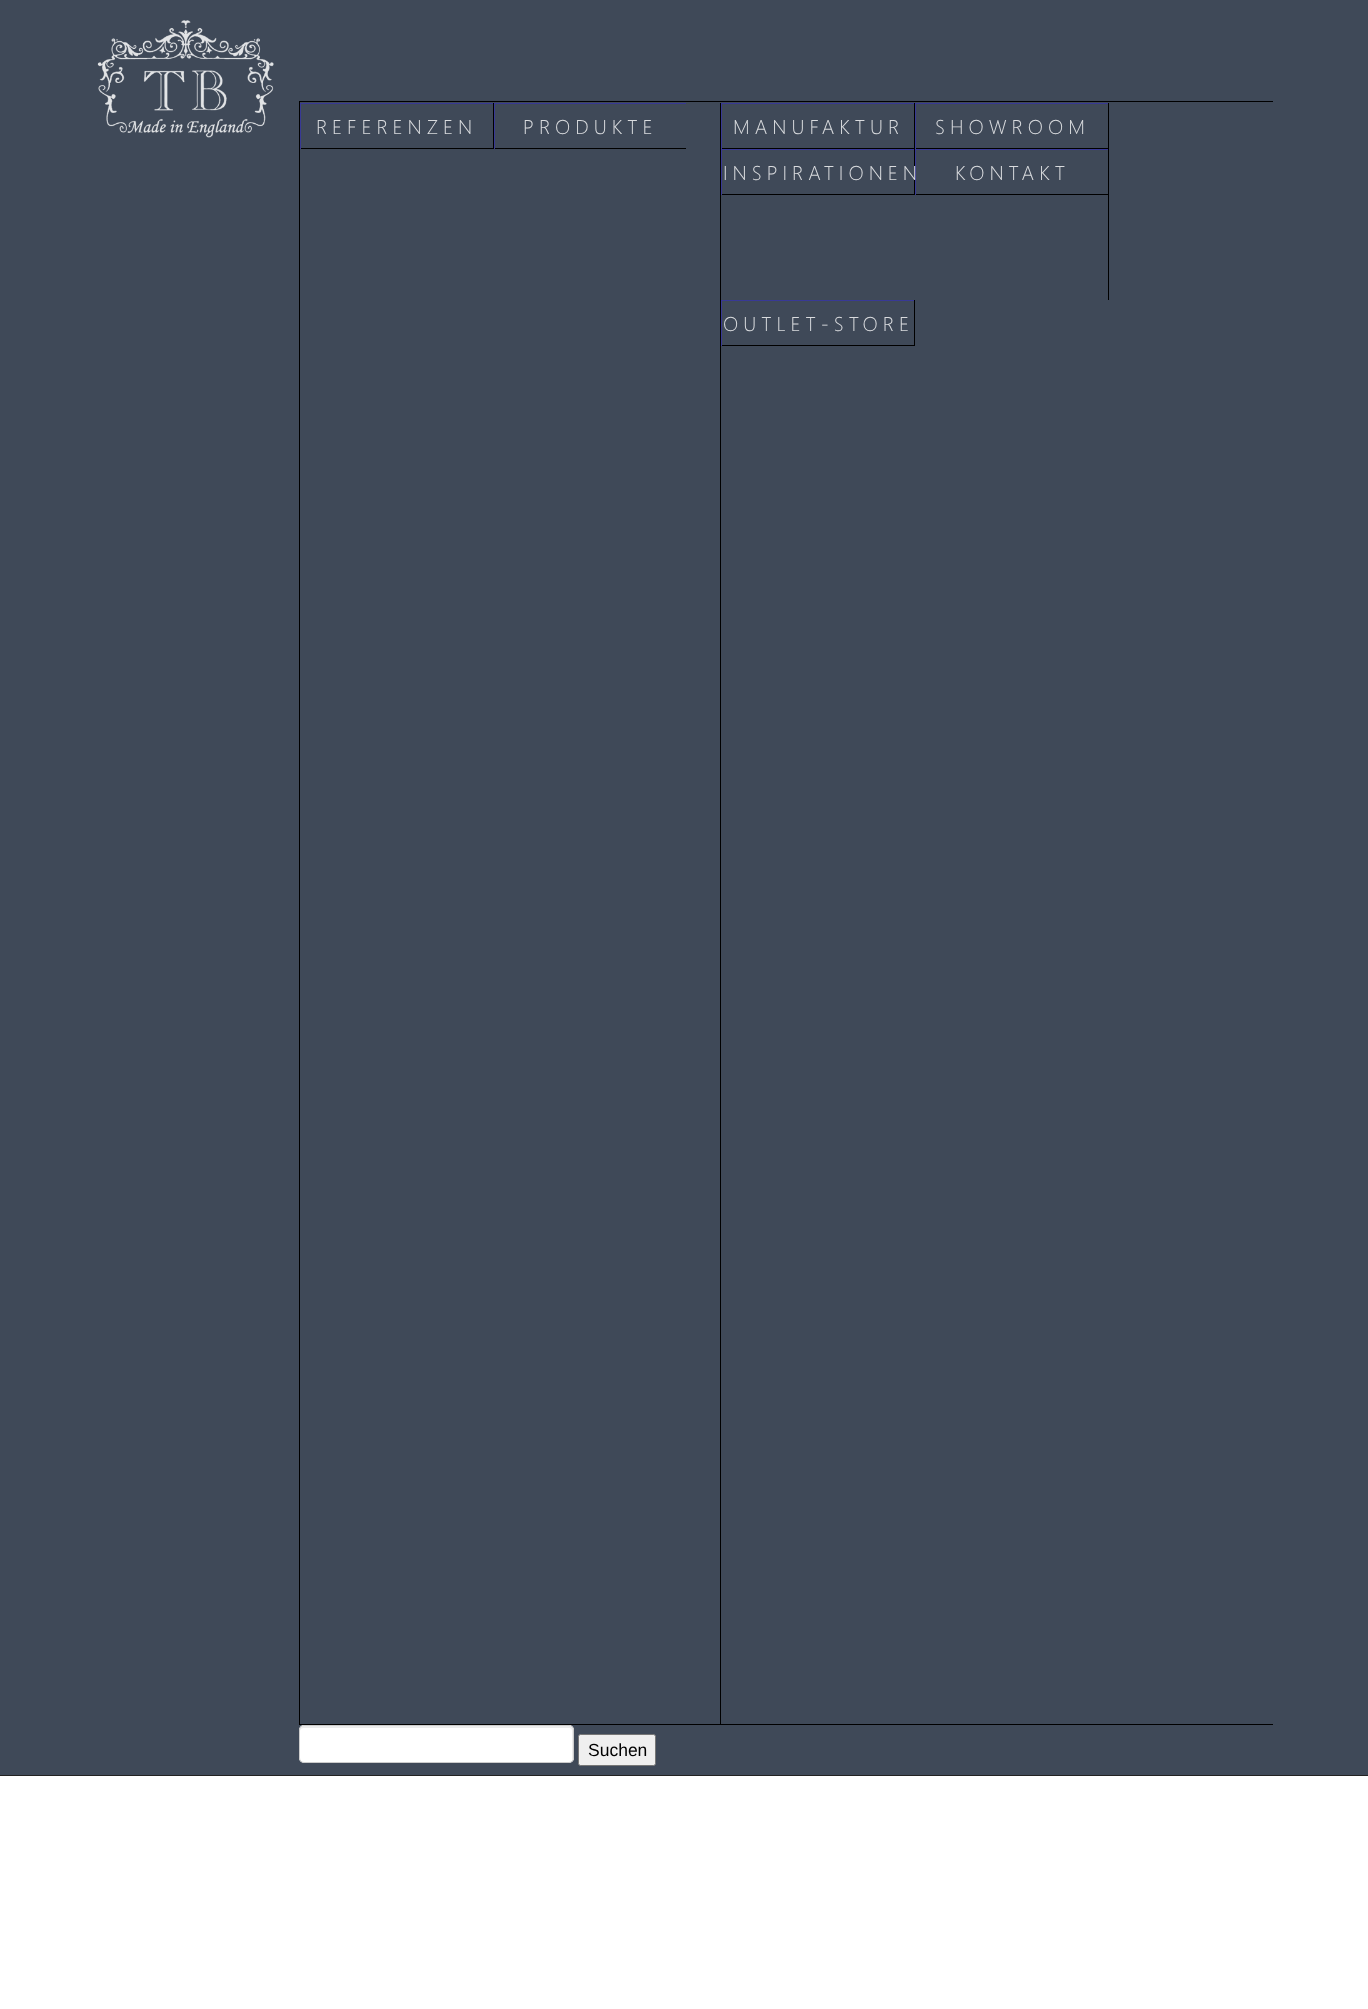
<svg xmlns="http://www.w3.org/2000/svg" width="1368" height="2009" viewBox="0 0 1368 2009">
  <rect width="100%" height="100%" fill="#fff"/>
  <path d="M0 0h1368v1775H0z" fill="#3f4958"/>
  <path d="M0 1775h1368v1H0z" fill="#222"/>
  <image x="97" y="20" width="177" height="118" href="img/1.png"/>
  <path d="M299 101h974v1H299z" fill="#000"/>
  <path d="M299 1724h974v1H299z" fill="#000"/>
  <path d="M299 101h1v1624H299z" fill="#000"/>
  <path d="M493 103h1v46H493z" fill="#000"/>
  <path d="M300 103h193v1H300z" fill="#383996"/>
  <path d="M300 148h193v1H300z" fill="#000"/>
  <path d="M300 103h1v46H300z" fill="#383996"/>
  <path d="M720 103h1v1621H720z" fill="#000"/>
  <path d="M494 103h192v1H494z" fill="#383996"/>
  <path d="M494 148h192v1H494z" fill="#000"/>
  <path d="M494 103h1v46H494z" fill="#383996"/>
  <path d="M914 103h1v92H914z" fill="#000"/>
  <path d="M721 103h193v1H721z" fill="#383996"/>
  <path d="M721 148h193v1H721z" fill="#000"/>
  <path d="M721 103h1v46H721z" fill="#383996"/>
  <path d="M1108 103h1v197H1108z" fill="#000"/>
  <path d="M915 103h193v1H915z" fill="#383996"/>
  <path d="M915 148h193v1H915z" fill="#000"/>
  <path d="M915 103h1v46H915z" fill="#383996"/>
  <path d="M721 149h193v1H721z" fill="#383996"/>
  <path d="M721 194h193v1H721z" fill="#000"/>
  <path d="M721 149h1v46H721z" fill="#383996"/>
  <path d="M915 149h193v1H915z" fill="#383996"/>
  <path d="M915 194h193v1H915z" fill="#000"/>
  <path d="M915 149h1v46H915z" fill="#383996"/>
  <path d="M914 300h1v46H914z" fill="#000"/>
  <path d="M721 300h193v1H721z" fill="#383996"/>
  <path d="M721 345h193v1H721z" fill="#000"/>
  <path d="M721 300h1v46H721z" fill="#383996"/>
  <rect x="299" y="1725" width="275" height="38" rx="5" fill="#fff"/>
  <path d="M304 1728H569C571 1728 572 1729 572 1731V1760C573 1759 573 1758 573 1757V1730C573 1728 571 1726 569 1726H304C302 1726 300 1728 300 1730V1731C300 1729 302 1728 304 1728Z" fill="#ececec"/>
  <rect x="299.5" y="1725.5" width="274" height="37" rx="4.5" fill="none" stroke="#ccc"/>
  <rect x="578.5" y="1734.5" width="77" height="31" rx="2" fill="#efefef" stroke="#767676"/>
  <g font-family="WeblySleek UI" font-size="20" font-weight="300" letter-spacing="5" fill="#d9dbde">
    <text x="316" y="134">REFERENZEN</text>
    <text x="523" y="134">PRODUKTE</text>
    <text x="733" y="134">MANUFAKTUR</text>
    <text x="935" y="134">SHOWROOM</text>
    <text x="723" y="180">INSPIRATIONEN</text>
    <text x="955" y="180">KONTAKT</text>
    <text x="723" y="331">OUTLET-STORE</text>
  </g>
  <text x="588" y="1756" font-family="Liberation Sans" font-size="17.5" fill="#000">Suchen</text>
</svg>
